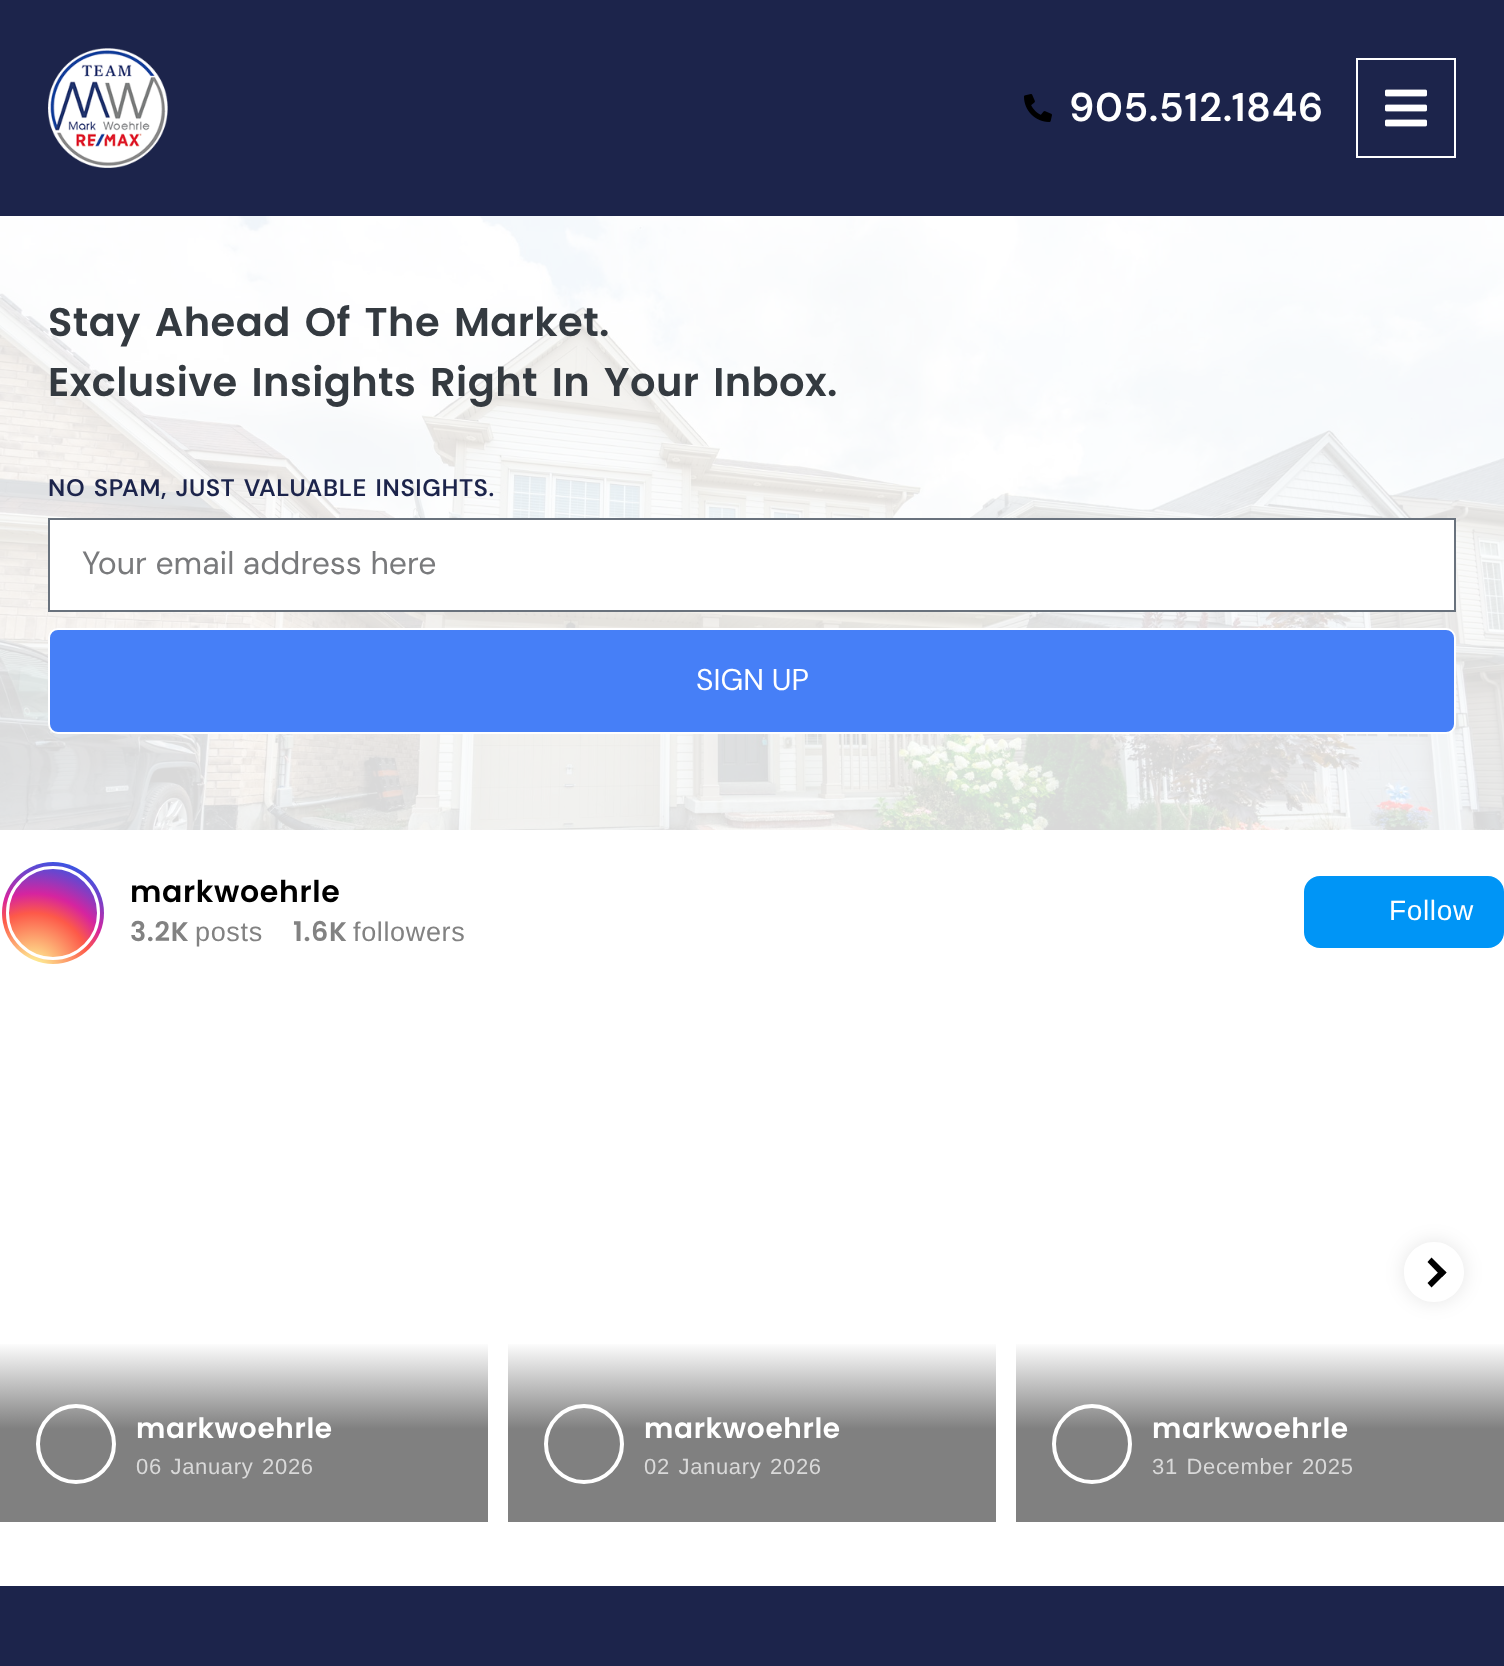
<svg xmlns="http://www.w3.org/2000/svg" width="1504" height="1666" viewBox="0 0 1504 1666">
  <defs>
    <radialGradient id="g1" gradientUnits="userSpaceOnUse" cx="33" cy="971" r="129"><stop offset="0" stop-color="#fdf497"/><stop offset="0.05" stop-color="#fdf497"/><stop offset="0.45" stop-color="#fd5949"/><stop offset="0.6" stop-color="#d6249f"/><stop offset="0.9" stop-color="#285aeb"/></radialGradient>
    <clipPath id="clip1"><path d="M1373 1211H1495V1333H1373ZM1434 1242C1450.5 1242 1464 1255.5 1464 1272C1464 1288.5 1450.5 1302 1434 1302C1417.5 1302 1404 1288.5 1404 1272C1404 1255.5 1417.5 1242 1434 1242Z" clip-rule="evenodd"/></clipPath>
    <linearGradient id="g2" gradientUnits="userSpaceOnUse" x1="244" y1="1342" x2="244" y2="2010"><stop offset="0" stop-color="#fff"/><stop offset="0.13" stop-color="#808080"/></linearGradient>
    <linearGradient id="g3" gradientUnits="userSpaceOnUse" x1="752" y1="1342" x2="752" y2="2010"><stop offset="0" stop-color="#fff"/><stop offset="0.13" stop-color="#808080"/></linearGradient>
    <linearGradient id="g4" gradientUnits="userSpaceOnUse" x1="1260" y1="1342" x2="1260" y2="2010"><stop offset="0" stop-color="#fff"/><stop offset="0.13" stop-color="#808080"/></linearGradient>
  </defs>
  <rect width="100%" height="100%" fill="#fff"/>
  <path d="M0 0h1504v216H0z" fill="#1c244b"/>
  <image x="48" y="48" width="120" height="120" href="img/1.png"/>
  <image x="1024" y="94" width="28" height="28" href="img/2.png"/>
  <path d="M1357 59h98v98H1357z" fill="none" stroke="#fff" stroke-width="2"/>
  <image x="1385" y="89" width="42" height="38" href="img/3.png"/>
  <image x="0" y="216" width="1504" height="614" href="img/4.png"/>
  <path d="M49 519h1406v92H49z" fill="#fff" stroke="#69727d" stroke-width="2"/>
  <rect x="49" y="629" width="1406" height="104" rx="9" fill="#467ff7" stroke="#fff" stroke-width="2"/>
  <circle cx="53" cy="913" r="51" fill="url(#g1)"/>
  <circle cx="53" cy="913" r="45.5" fill="none" stroke="#fff" stroke-width="3"/>
  <rect x="1304" y="876" width="200" height="72" rx="16" fill="#0095f6"/>
  <g clip-path="url(#clip1)">
    <rect x="1404" y="1242" width="60" height="60" rx="30" fill="#0000001a" filter="blur(10px)"/>
  </g>
  <path d="M1446.5 1272.5L1431.5 1287.5L1427.5 1283L1442 1268.5Z" fill="#000"/>
  <path d="M1446.5 1272.5L1442 1277L1427.5 1262L1431.5 1257.5Z" fill="#000"/>
  <path d="M0 1344h488v178H0z" fill="url(#g2)"/>
  <circle cx="76" cy="1444" r="38" fill="none" stroke="#fff" stroke-width="4"/>
  <path d="M508 1344h488v178H508z" fill="url(#g3)"/>
  <circle cx="584" cy="1444" r="38" fill="none" stroke="#fff" stroke-width="4"/>
  <path d="M1016 1344h488v178H1016z" fill="url(#g4)"/>
  <circle cx="1092" cy="1444" r="38" fill="none" stroke="#fff" stroke-width="4"/>
  <path d="M0 1586h1504v80H0z" fill="#1c244b"/>
  <text x="1069" y="121" font-family="DM Sans" font-size="40" font-weight="600" letter-spacing="0.65" fill="#fff">905.512.1846</text>
  <g font-family="Poppins" font-size="40" font-weight="600" letter-spacing="0.4" fill="#343a40">
    <text x="48" y="336" word-spacing="4">Stay Ahead Of The Market.</text>
    <text x="48" y="396" word-spacing="4">Exclusive Insights Right In Your Inbox.</text>
  </g>
  <text x="48" y="496" word-spacing="2" font-family="DM Sans" font-size="24" font-weight="600" letter-spacing="0.65" fill="#1c244b">NO SPAM, JUST VALUABLE INSIGHTS.</text>
  <text x="82" y="574" font-family="DM Sans" font-size="32" fill="#797a7c">Your email address here</text>
  <text x="696" y="690" font-family="DM Sans" font-size="30" fill="#fff">SIGN UP</text>
  <text x="130" y="902" font-family="Poppins" font-size="30" font-weight="600" letter-spacing="0.65" fill="#000">markwoehrle</text>
  <text x="130" y="941" font-family="Poppins" font-size="27" font-weight="600" letter-spacing="0.65" fill="#828282">3.2K</text>
  <text x="195" y="941" font-family="Liberation Sans" font-size="27" letter-spacing="0.65" fill="#828282">posts</text>
  <text x="293" y="941" font-family="Poppins" font-size="27" font-weight="600" letter-spacing="0.65" fill="#828282">1.6K</text>
  <text x="353" y="941" font-family="Liberation Sans" font-size="27" letter-spacing="0.65" fill="#828282">followers</text>
  <text x="1389" y="920" font-family="Liberation Sans" font-size="28" letter-spacing="0.65" fill="#fff">Follow</text>
  <text x="136" y="1438" font-family="Poppins" font-size="28" font-weight="600" letter-spacing="0.65" fill="#fff">markwoehrle</text>
  <text x="136" y="1474" word-spacing="2" font-family="Liberation Sans" font-size="22" letter-spacing="0.65" fill="#d9d9d9">06 January 2026</text>
  <text x="644" y="1438" font-family="Poppins" font-size="28" font-weight="600" letter-spacing="0.65" fill="#fff">markwoehrle</text>
  <text x="644" y="1474" word-spacing="2" font-family="Liberation Sans" font-size="22" letter-spacing="0.65" fill="#d9d9d9">02 January 2026</text>
  <text x="1152" y="1438" font-family="Poppins" font-size="28" font-weight="600" letter-spacing="0.65" fill="#fff">markwoehrle</text>
  <text x="1152" y="1474" word-spacing="2" font-family="Liberation Sans" font-size="22" letter-spacing="0.65" fill="#d9d9d9">31 December 2025</text>
</svg>
